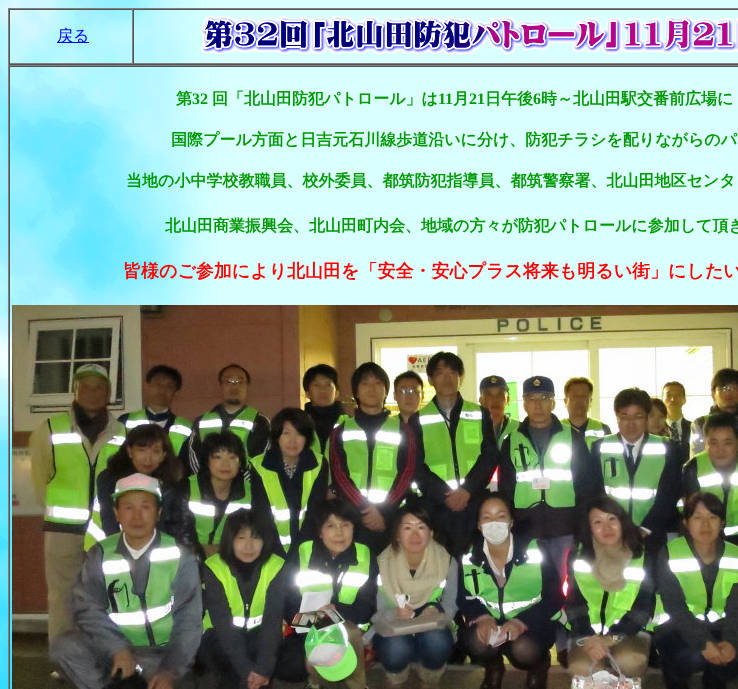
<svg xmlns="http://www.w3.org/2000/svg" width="738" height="689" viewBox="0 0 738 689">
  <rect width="100%" height="100%" fill="#fff"/>
  <image x="0" y="0" width="738" height="689" href="img/1.png"/>
  <path d="M8 8h730v1H8z" fill="#808080"/>
  <path d="M8 64h730v1H8z" fill="#555"/>
  <path d="M8 8h1v57H8z" fill="#808080"/>
  <path d="M9 9h729v1H9z" fill="#555"/>
  <path d="M132 9h1v55H132z" fill="#808080"/>
  <path d="M9 63h729v1H9z" fill="#808080"/>
  <path d="M9 9h1v55H9z" fill="#555"/>
  <path d="M57 42h32v1H57z" fill="#00e"/>
  <path d="M133 9h1v55H133z" fill="#555"/>
  <image x="201" y="16" width="537" height="39" href="img/2.png"/>
  <path d="M8 65h730v1H8z" fill="#808080"/>
  <path d="M8 65h1v624H8z" fill="#808080"/>
  <path d="M9 66h729v1H9z" fill="#555"/>
  <path d="M9 66h1v623H9z" fill="#555"/>
  <image x="12" y="305" width="726" height="384" href="img/3.png"/>
  <text x="57" y="41" font-family="WenQuanYi Zen Hei" font-size="16" font-weight="500" fill="#00e">戻る</text>
  <text x="176" y="104" font-family="WenQuanYi Zen Hei" font-size="16" font-weight="bold" fill="#090">第</text>
  <text x="192" y="104" font-family="Liberation Serif" font-size="16" font-weight="bold" fill="#090">32</text>
  <text x="212" y="104" font-family="WenQuanYi Zen Hei" font-size="16" font-weight="bold" fill="#090">回「北山田防犯パトロール」は</text>
  <text x="438" y="104" font-family="Liberation Serif" font-size="16" font-weight="bold" fill="#090">11</text>
  <text x="453" y="104" font-family="WenQuanYi Zen Hei" font-size="16" font-weight="bold" fill="#090">月</text>
  <text x="469" y="104" font-family="Liberation Serif" font-size="16" font-weight="bold" fill="#090">21</text>
  <text x="485" y="104" font-family="WenQuanYi Zen Hei" font-size="16" font-weight="bold" fill="#090">日午後</text>
  <text x="533" y="104" font-family="Liberation Serif" font-size="16" font-weight="bold" fill="#090">6</text>
  <g font-family="WenQuanYi Zen Hei" font-size="16" font-weight="bold" fill="#090">
    <text x="541" y="104">時～北山田駅交番前広場に</text>
    <text x="171" y="145">国際プール方面と日吉元石川線歩道沿いに分け、防犯チラシを配りながらのパ</text>
    <text x="126" y="186">当地の小中学校教職員、校外委員、都筑防犯指導員、都筑警察署、北山田地区センタ</text>
    <text x="165" y="231">北山田商業振興会、北山田町内会、地域の方々が防犯パトロールに参加して頂き</text>
  </g>
  <text x="123" y="277" font-family="WenQuanYi Zen Hei" font-size="18" font-weight="bold" fill="#f00">皆様のご参加により北山田を「安全・安心プラス将来も明るい街」にしたい</text>
</svg>
